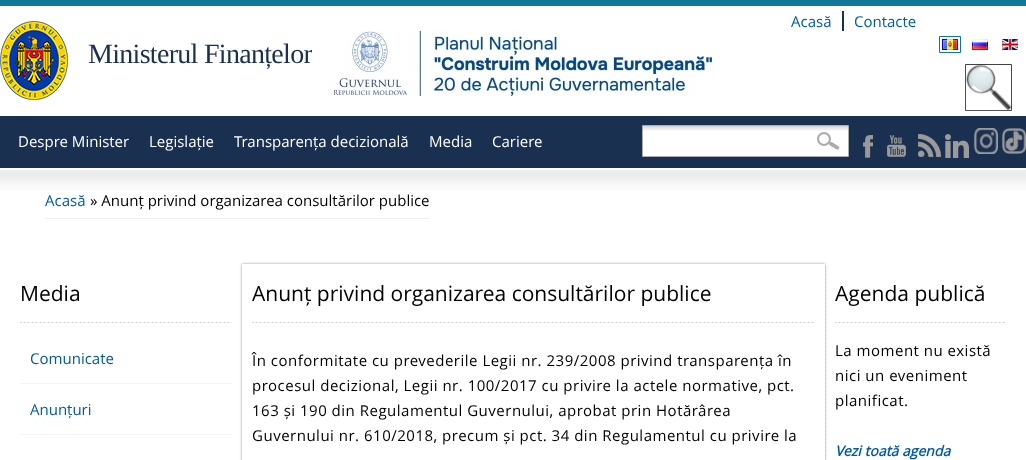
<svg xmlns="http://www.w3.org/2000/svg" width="1026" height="460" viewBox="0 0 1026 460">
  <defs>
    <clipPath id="clip1"><path d="M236 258H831V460H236ZM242 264H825V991H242Z" clip-rule="evenodd"/></clipPath>
  </defs>
  <rect width="100%" height="100%" fill="#fff"/>
  <path d="M0 0h1026v6H0z" fill="#13779a"/>
  <path d="M842 11h2v20H842z" fill="#1a3051"/>
  <image x="0" y="21" width="68" height="79" href="img/1.png"/>
  <path d="M939.5 36.5h21v16H939.5z" fill="none" stroke="#13779b"/>
  <image x="942" y="39" width="16" height="11" href="img/3.png"/>
  <image x="972" y="39" width="16" height="11" href="img/4.png"/>
  <image x="1002" y="39" width="16" height="11" href="img/5.png"/>
  <path d="M0 116h1026v52H0z" fill="#1a3051"/>
  <path d="M643 131h205v25H643z" fill="#fff"/>
  <image x="643" y="126" width="205" height="5" href="img/6.png"/>
  <path d="M642.5 125.5h206v31H642.5z" fill="none" stroke="#acacac"/>
  <image x="817" y="132" width="23" height="18" href="img/7.png"/>
  <image x="863" y="135" width="10" height="23" href="img/8.png"/>
  <image x="887" y="135" width="19" height="22" href="img/9.png"/>
  <image x="918" y="134" width="23" height="23" href="img/10.png"/>
  <image x="945" y="134" width="24" height="24" href="img/11.png"/>
  <image x="974" y="128" width="24" height="26" href="img/12.png"/>
  <image x="1002" y="128" width="24" height="26" href="img/13.png"/>
  <image x="0" y="170" width="1026" height="20" href="img/14.png"/>
  <path d="M45 218h384v1H45z" fill="#eee"/>
  <path d="M965.5 64.5h46v46H965.5z" fill="none" stroke="#333"/>
  <image x="965" y="64" width="47" height="47" href="img/15.png"/>
  <image x="20" y="322" width="212" height="1" href="img/16.png"/>
  <path d="M20 383h212v1H20z" fill="#f3f3f3"/>
  <path d="M20 434h212v1H20z" fill="#f3f3f3"/>
  <g clip-path="url(#clip1)">
    <path d="M242 264h583v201H242z" fill="#999" filter="blur(1.5px)"/>
  </g>
  <image x="252" y="322" width="562" height="1" href="img/17.png"/>
  <image x="825" y="266" width="1" height="194" href="img/18.png"/>
  <image x="835" y="322" width="170" height="1" href="img/19.png"/>
  <g font-family="Open Sans" font-size="15" fill="#005aa8">
    <text x="791" y="27">Acasă</text>
    <text x="854" y="27">Contacte</text>
  </g>
  <text x="88" y="63" font-family="Liberation Serif" font-size="28" letter-spacing="-0.7" fill="#1a3051">Ministerul Finanțelor</text>
  <image x="312" y="31" width="400" height="65" href="img/2.png"/>
  <g font-family="Open Sans" font-size="15" fill="#fff">
    <text x="18" y="147">Despre Minister</text>
    <text x="149" y="147">Legislație</text>
    <text x="234" y="147">Transparența decizională</text>
    <text x="429" y="147">Media</text>
    <text x="492" y="147">Cariere</text>
  </g>
  <text x="45" y="206" font-family="Open Sans" font-size="15" fill="#005aa8">Acasă</text>
  <text x="90" y="206" font-family="Open Sans" font-size="15" fill="#000">» Anunț privind organizarea consultărilor publice</text>
  <text x="20" y="301" font-family="Open Sans" font-size="21" fill="#000">Media</text>
  <g font-family="Open Sans" font-size="15" fill="#005aa8">
    <text x="30" y="364">Comunicate</text>
    <text x="30" y="415">Anunțuri</text>
  </g>
  <text x="252" y="301" font-family="Open Sans" font-size="21" fill="#000">Anunț privind organizarea consultărilor publice</text>
  <g font-family="Open Sans" font-size="15" letter-spacing="0.5" fill="#000">
    <text x="252" y="366">În conformitate cu prevederile Legii nr. 239/2008 privind transparența în</text>
    <text x="252" y="391">procesul decizional, Legii nr. 100/2017 cu privire la actele normative, pct.</text>
    <text x="252" y="416">163 și 190 din Regulamentul Guvernului, aprobat prin Hotărârea</text>
    <text x="252" y="441">Guvernului nr. 610/2018, precum și pct. 34 din Regulamentul cu privire la</text>
  </g>
  <text x="835" y="301" font-family="Open Sans" font-size="21" fill="#000">Agenda publică</text>
  <g font-family="Open Sans" font-size="15" letter-spacing="0.5" fill="#000">
    <text x="835" y="356">La moment nu există</text>
    <text x="835" y="381">nici un eveniment</text>
    <text x="835" y="406">planificat.</text>
  </g>
  <text x="835" y="456" font-family="Open Sans" font-size="14" font-weight="bold" font-style="italic" fill="#005aa8">Vezi toată agenda</text>
</svg>
